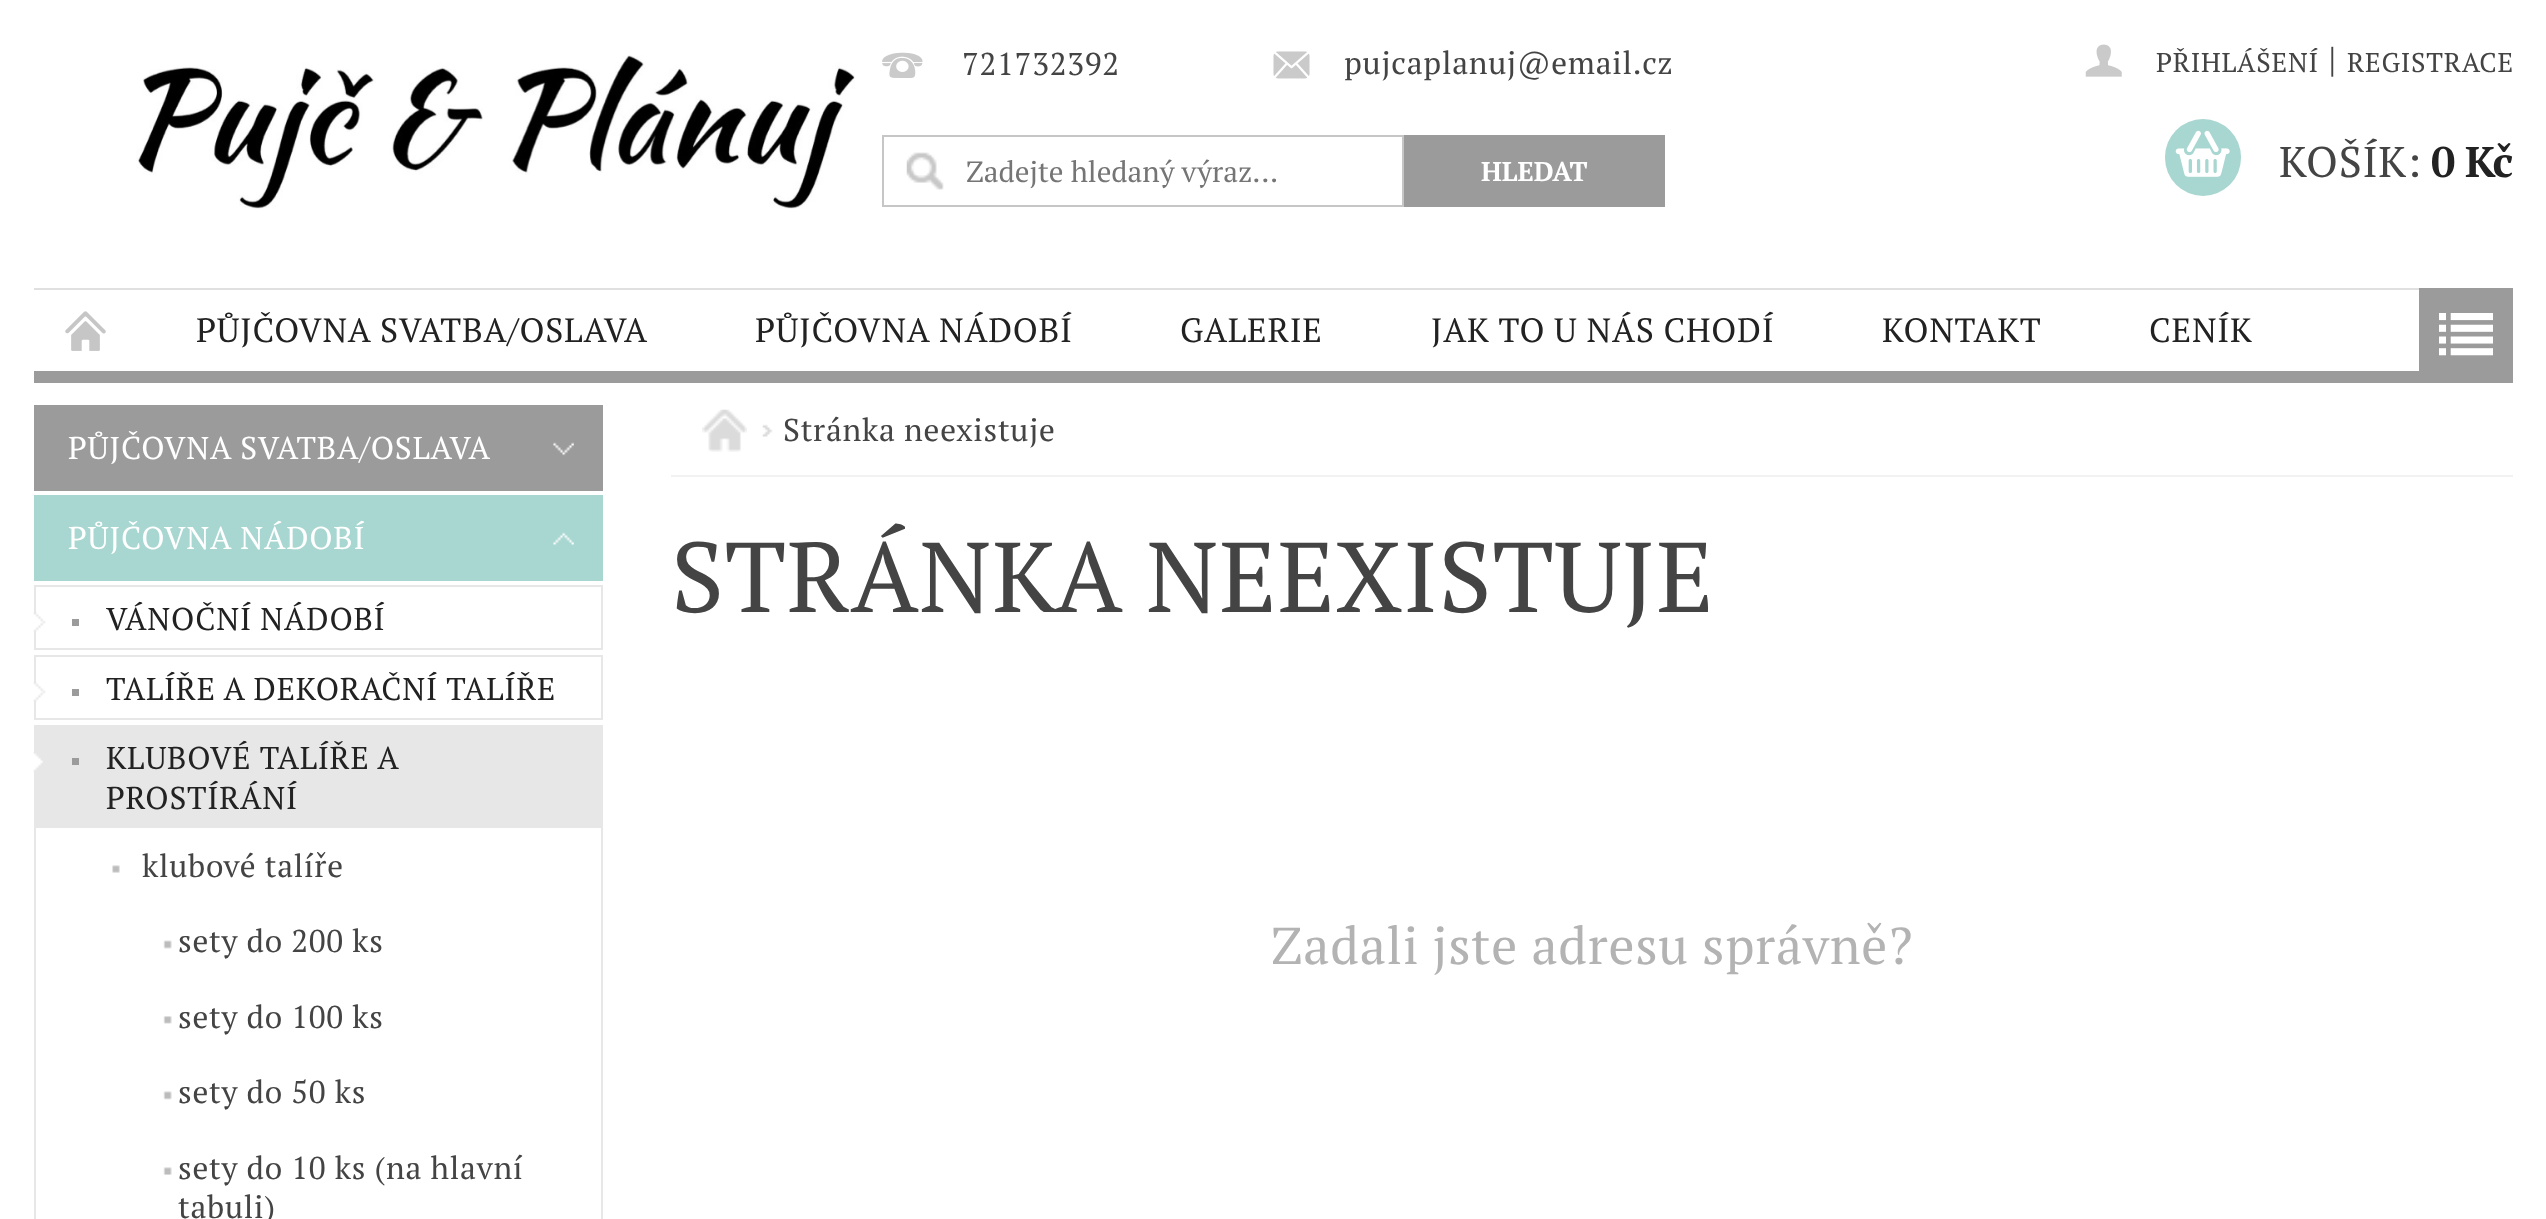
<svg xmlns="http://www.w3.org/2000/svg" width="2546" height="1219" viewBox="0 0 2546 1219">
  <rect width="100%" height="100%" fill="#fff"/>
  <path d="M34 371h2385v12H34z" fill="#9b9b9b"/>
  <image x="136" y="55" width="719" height="154" href="img/1.png"/>
  <image x="882" y="52" width="41" height="26" href="img/2.png"/>
  <image x="1273" y="51" width="37" height="28" href="img/3.png"/>
  <image x="906" y="152" width="38" height="38" href="img/4.png"/>
  <path d="M883 136h520v70H883z" fill="none" stroke="#c6c6c6" stroke-width="2"/>
  <path d="M1404 135h261v72H1404z" fill="#9b9b9b"/>
  <image x="2085" y="44" width="37" height="33" href="img/5.png"/>
  <rect x="2165" y="119" width="76" height="77" rx="38" fill="#a8d6d1"/>
  <image x="2175" y="130" width="55" height="47" href="img/6.png"/>
  <path d="M34 288h2385v2H34z" fill="#e0e0e0"/>
  <image x="65" y="311" width="41" height="40" href="img/7.png"/>
  <path d="M2419 288h94v95H2419z" fill="#9b9b9b"/>
  <image x="2439" y="313" width="54" height="43" href="img/8.png"/>
  <path d="M34 405h569v86H34z" fill="#9b9b9b"/>
  <image x="553" y="442" width="21" height="14" href="img/9.png"/>
  <path d="M34 495h569v86H34z" fill="#a8d6d1"/>
  <image x="553" y="532" width="21" height="14" href="img/10.png"/>
  <path d="M35 586h567v63H35z" fill="none" stroke="#e7e7e7" stroke-width="2"/>
  <image x="33" y="612" width="13" height="20" href="img/11.png"/>
  <path d="M72 619h7v7H72z" fill="#9b9b9b"/>
  <path d="M35 656h567v63H35z" fill="none" stroke="#e7e7e7" stroke-width="2"/>
  <image x="33" y="682" width="13" height="20" href="img/12.png"/>
  <path d="M72 689h7v7H72z" fill="#9b9b9b"/>
  <path d="M35 726h567v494H35z" fill="none" stroke="#e7e7e7" stroke-width="2"/>
  <path d="M36 727h565v101H36z" fill="#e7e7e7"/>
  <image x="33" y="752" width="10" height="20" href="img/13.png"/>
  <path d="M72 758h7v7H72z" fill="#9b9b9b"/>
  <image x="112" y="865" width="8" height="8" href="img/14.png"/>
  <image x="163" y="940" width="9" height="9" href="img/15.png"/>
  <image x="163" y="1016" width="9" height="8" href="img/16.png"/>
  <image x="163" y="1091" width="9" height="9" href="img/17.png"/>
  <image x="163" y="1167" width="9" height="8" href="img/18.png"/>
  <path d="M671 475h1842v2H671z" fill="#f2f2f2"/>
  <image x="702" y="409" width="45" height="43" href="img/19.png"/>
  <image x="762" y="424" width="11" height="13" href="img/20.png"/>
  <g font-family="PT Serif" font-size="31.5" letter-spacing="0.75" fill="#444">
    <text x="962" y="75">721732392</text>
    <text x="1344" y="74">pujcaplanuj@email.cz</text>
  </g>
  <text x="966" y="182" font-family="PT Serif" font-size="29.25" fill="#757575">Zadejte hledaný výraz...</text>
  <text x="1481" y="181" font-family="PT Serif" font-size="27" font-weight="bold" fill="#fff">HLEDAT</text>
  <text x="2156" y="72" font-family="PT Serif" font-size="27" letter-spacing="0.75" fill="#444">PŘIHLÁŠENÍ</text>
  <text x="2328" y="72" font-family="PT Serif" font-size="36" letter-spacing="0.75" fill="#444">|</text>
  <text x="2347" y="72" font-family="PT Serif" font-size="27" letter-spacing="0.75" fill="#444">REGISTRACE</text>
  <text x="2279" y="177" font-family="PT Serif" font-size="43" letter-spacing="0.75" fill="#444">KOŠÍK:</text>
  <text x="2431" y="177" font-family="PT Serif" font-size="43" font-weight="bold" letter-spacing="-1" fill="#222">0 Kč</text>
  <g font-family="PT Serif" font-size="33.75" letter-spacing="0.75" fill="#222">
    <text x="196" y="342">PŮJČOVNA SVATBA/OSLAVA</text>
    <text x="755" y="342">PŮJČOVNA NÁDOBÍ</text>
    <text x="1180" y="342">GALERIE</text>
    <text x="1431" y="342">JAK TO U NÁS CHODÍ</text>
    <text x="1882" y="342">KONTAKT</text>
    <text x="2149" y="342">CENÍK</text>
  </g>
  <g font-family="PT Serif" font-size="31.5" letter-spacing="0.75" fill="#fff">
    <text x="68" y="459">PŮJČOVNA SVATBA/OSLAVA</text>
    <text x="68" y="549">PŮJČOVNA NÁDOBÍ</text>
  </g>
  <g font-family="PT Serif" font-size="31.5" letter-spacing="0.75" fill="#222">
    <text x="106" y="630">VÁNOČNÍ NÁDOBÍ</text>
    <text x="106" y="700">TALÍŘE A DEKORAČNÍ TALÍŘE</text>
    <text x="106" y="769">KLUBOVÉ TALÍŘE A</text>
    <text x="106" y="809">PROSTÍRÁNÍ</text>
  </g>
  <g font-family="PT Serif" font-size="31.5" letter-spacing="0.75" fill="#444">
    <text x="142" y="877">klubové talíře</text>
    <text x="178" y="952">sety do 200 ks</text>
    <text x="178" y="1028">sety do 100 ks</text>
    <text x="178" y="1103">sety do 50 ks</text>
    <text x="178" y="1179">sety do 10 ks (na hlavní</text>
    <text x="178" y="1218">tabuli)</text>
    <text x="783" y="441">Stránka neexistuje</text>
  </g>
  <text x="671" y="612" font-family="PT Serif" font-size="99" letter-spacing="0.75" fill="#444">STRÁNKA NEEXISTUJE</text>
  <text x="1271" y="964" font-family="PT Serif" font-size="51.75" letter-spacing="0.75" fill="#b3b3b3">Zadali jste adresu správně?</text>
</svg>
